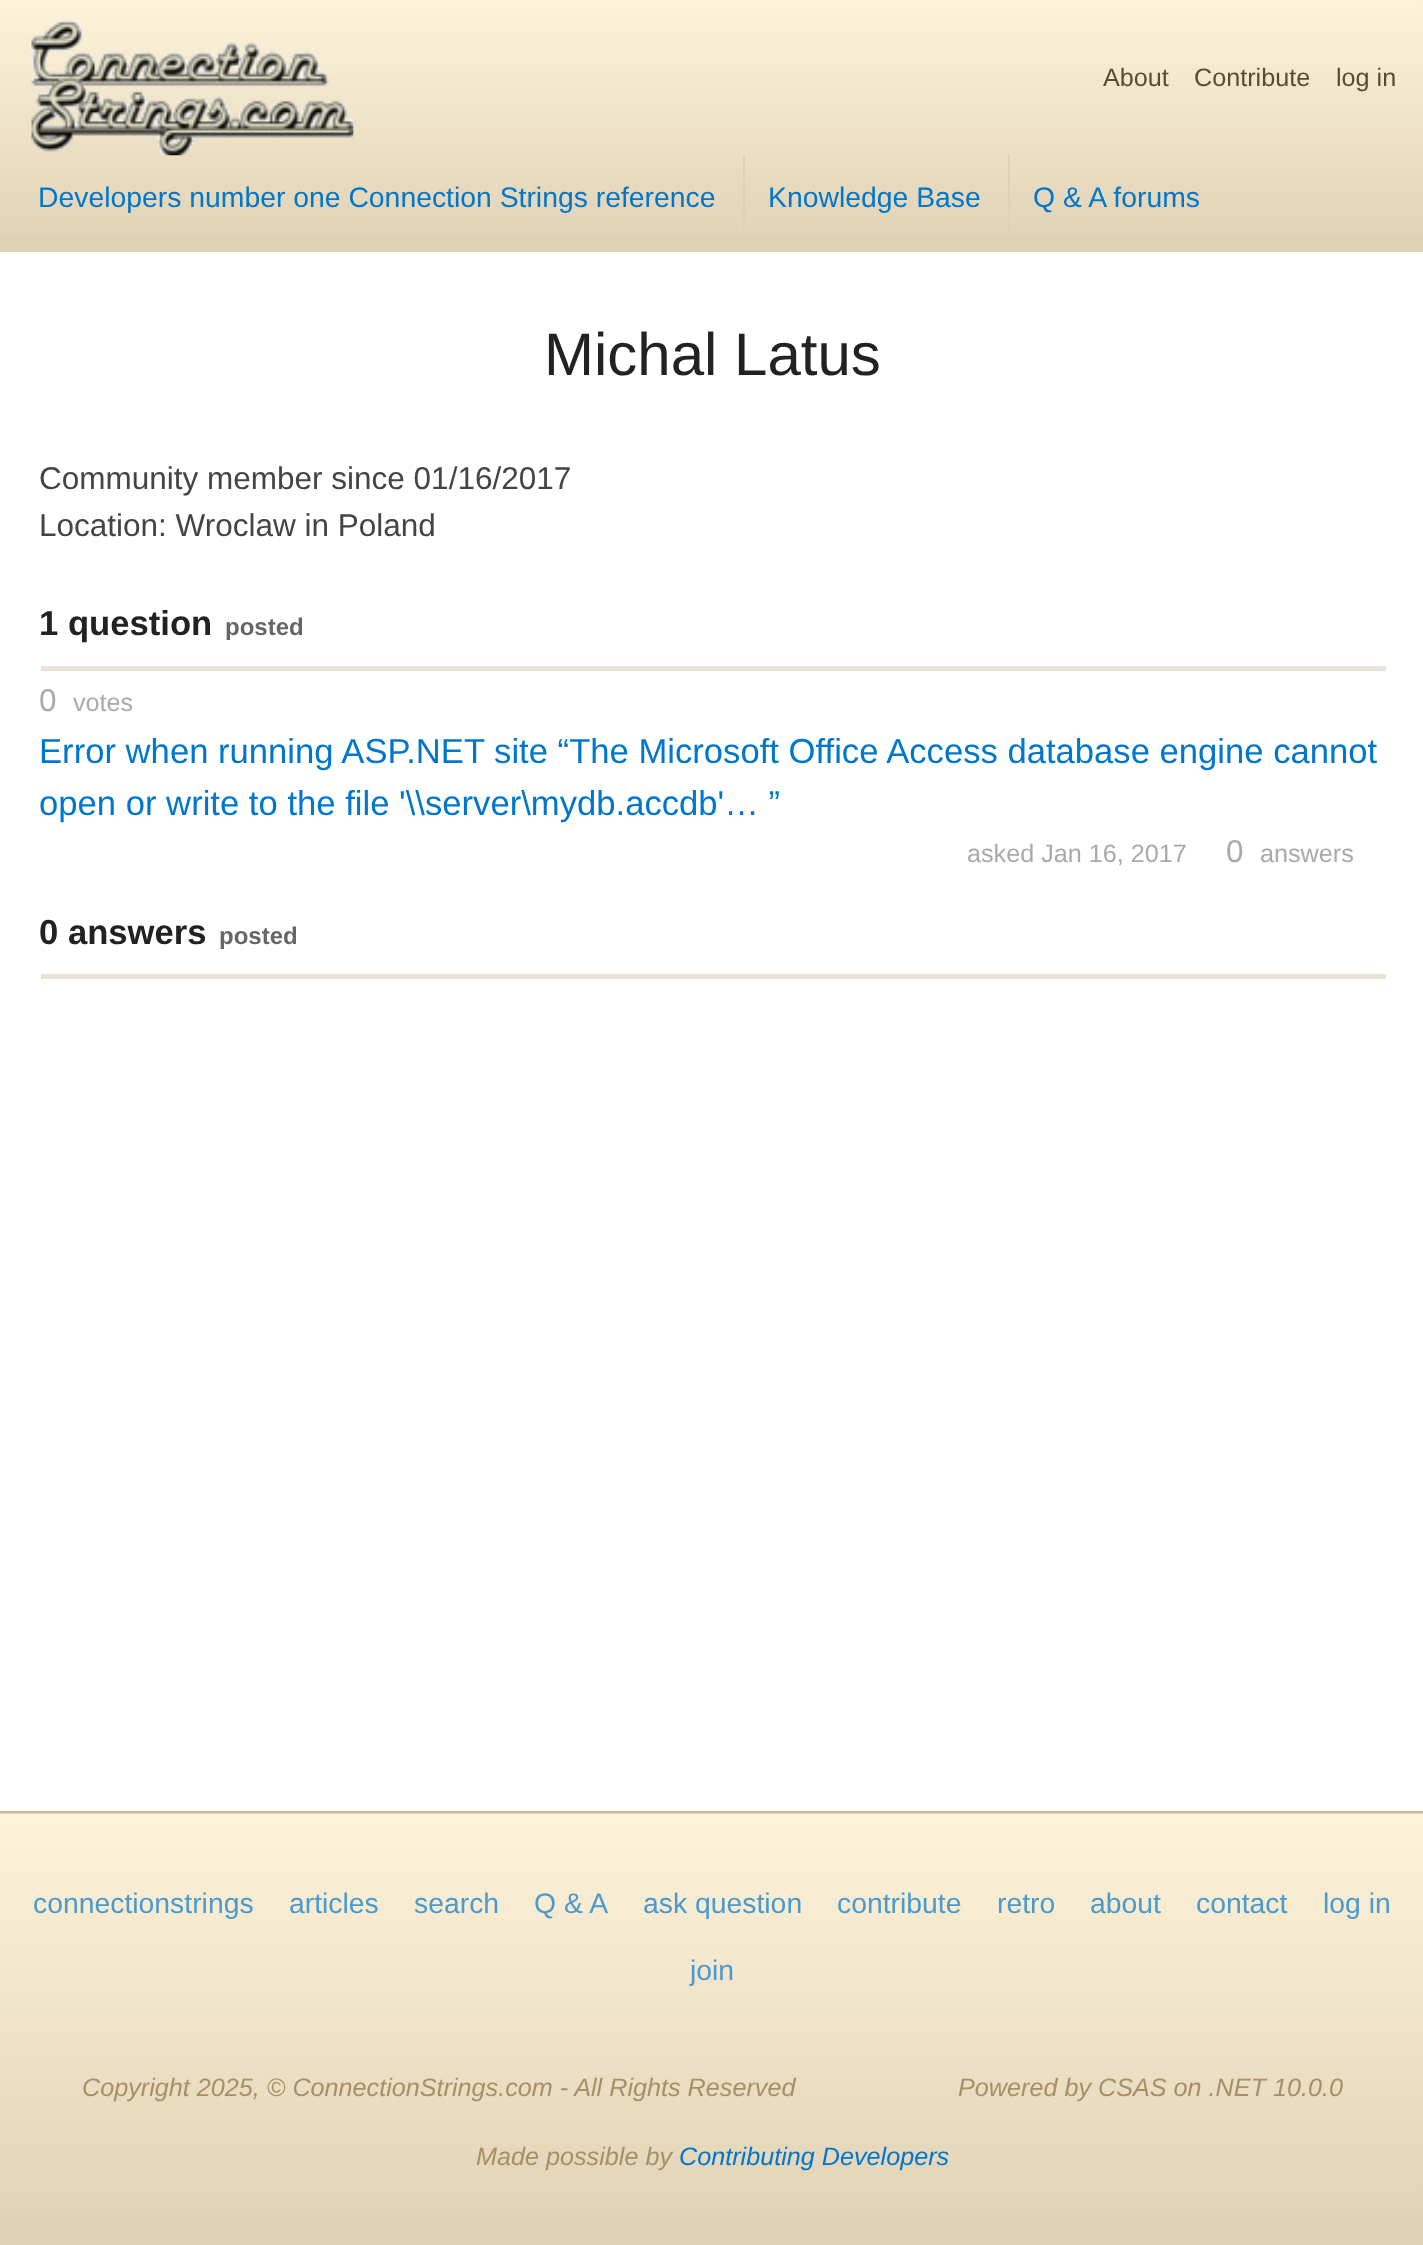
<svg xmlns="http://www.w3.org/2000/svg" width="1423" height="2245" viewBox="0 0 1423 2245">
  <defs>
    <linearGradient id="g1" gradientUnits="userSpaceOnUse" x1="712" y1="0" x2="712" y2="252"><stop offset="0" stop-color="#fef3da"/><stop offset="1" stop-color="#dfd1b5"/></linearGradient>
    <linearGradient id="g2" gradientUnits="userSpaceOnUse" x1="712" y1="1814" x2="712" y2="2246"><stop offset="0" stop-color="#fef3da"/><stop offset="1" stop-color="#dfd1b5"/></linearGradient>
  </defs>
  <rect width="100%" height="100%" fill="#dfd1b5"/>
  <path d="M0 0h1423v235H0z" fill="url(#g1)"/>
  <image x="31" y="20" width="323" height="136" href="img/1.png"/>
  <path d="M743 155h2v80H743z" fill="#dfd1b5"/>
  <path d="M1008 155h2v80H1008z" fill="#dfd1b5"/>
  <path d="M0 252h1423v1559H0z" fill="#fff"/>
  <path d="M41 666h1345v5H41z" fill="#e8e2d7"/>
  <path d="M41 974h1345v5H41z" fill="#e8e2d7"/>
  <path d="M0 1814h1423v403H0z" fill="url(#g2)"/>
  <path d="M0 1811h1423v2H0z" fill="#cb9"/>
  <g font-family="Liberation Sans" font-size="25.2" fill="#5a4c33">
    <text x="1103" y="86">About</text>
    <text x="1194" y="86">Contribute</text>
    <text x="1336" y="86">log in</text>
  </g>
  <g font-family="Liberation Sans" font-size="28.35" fill="#07c">
    <text x="38" y="207">Developers number one Connection Strings reference</text>
    <text x="768" y="207">Knowledge Base</text>
    <text x="1033" y="207">Q &amp; A forums</text>
  </g>
  <text x="544" y="375" font-family="Liberation Sans" font-size="60" fill="#222">Michal Latus</text>
  <g font-family="Liberation Sans" font-size="31.5" fill="#444">
    <text x="39" y="489">Community member since 01/16/2017</text>
    <text x="39" y="536">Location: Wroclaw in Poland</text>
  </g>
  <text x="39" y="635" font-family="Liberation Sans" font-size="34.65" font-weight="bold" fill="#222">1 question</text>
  <text x="225" y="635" font-family="Liberation Sans" font-size="24" font-weight="bold" fill="#666">posted</text>
  <text x="39" y="711" font-family="Liberation Sans" font-size="31.5" fill="#a9a9a9">0</text>
  <text x="73" y="711" font-family="Liberation Sans" font-size="25.2" fill="#a9a9a9">votes</text>
  <g font-family="Liberation Sans" font-size="34.65" fill="#07c">
    <text x="39" y="763">Error when running ASP.NET site “The Microsoft Office Access database engine cannot</text>
    <text x="39" y="815">open or write to the file '\\server\mydb.accdb'… ”</text>
  </g>
  <text x="967" y="862" font-family="Liberation Sans" font-size="25.2" fill="#a9a9a9">asked Jan 16, 2017</text>
  <text x="1226" y="862" font-family="Liberation Sans" font-size="31.5" fill="#a9a9a9">0</text>
  <text x="1260" y="862" font-family="Liberation Sans" font-size="25.2" fill="#a9a9a9">answers</text>
  <text x="39" y="944" font-family="Liberation Sans" font-size="34.65" font-weight="bold" fill="#222">0 answers</text>
  <text x="219" y="944" font-family="Liberation Sans" font-size="24" font-weight="bold" fill="#666">posted</text>
  <g font-family="Liberation Sans" font-size="28.35" fill="#4a9ace">
    <text x="33" y="1913">connectionstrings</text>
    <text x="289" y="1913">articles</text>
    <text x="414" y="1913">search</text>
    <text x="534" y="1913">Q &amp; A</text>
    <text x="643" y="1913">ask question</text>
    <text x="837" y="1913">contribute</text>
    <text x="997" y="1913">retro</text>
    <text x="1090" y="1913">about</text>
    <text x="1196" y="1913">contact</text>
    <text x="1323" y="1913">log in</text>
    <text x="690" y="1980">join</text>
  </g>
  <g font-family="Liberation Sans" font-size="25.2" font-style="italic" fill="#a79066">
    <text x="82" y="2096">Copyright 2025, © ConnectionStrings.com - All Rights Reserved</text>
    <text x="958" y="2096">Powered by CSAS on .NET 10.0.0</text>
    <text x="476" y="2165">Made possible by</text>
  </g>
  <text x="679" y="2165" font-family="Liberation Sans" font-size="25.2" font-style="italic" fill="#07c">Contributing Developers</text>
</svg>
